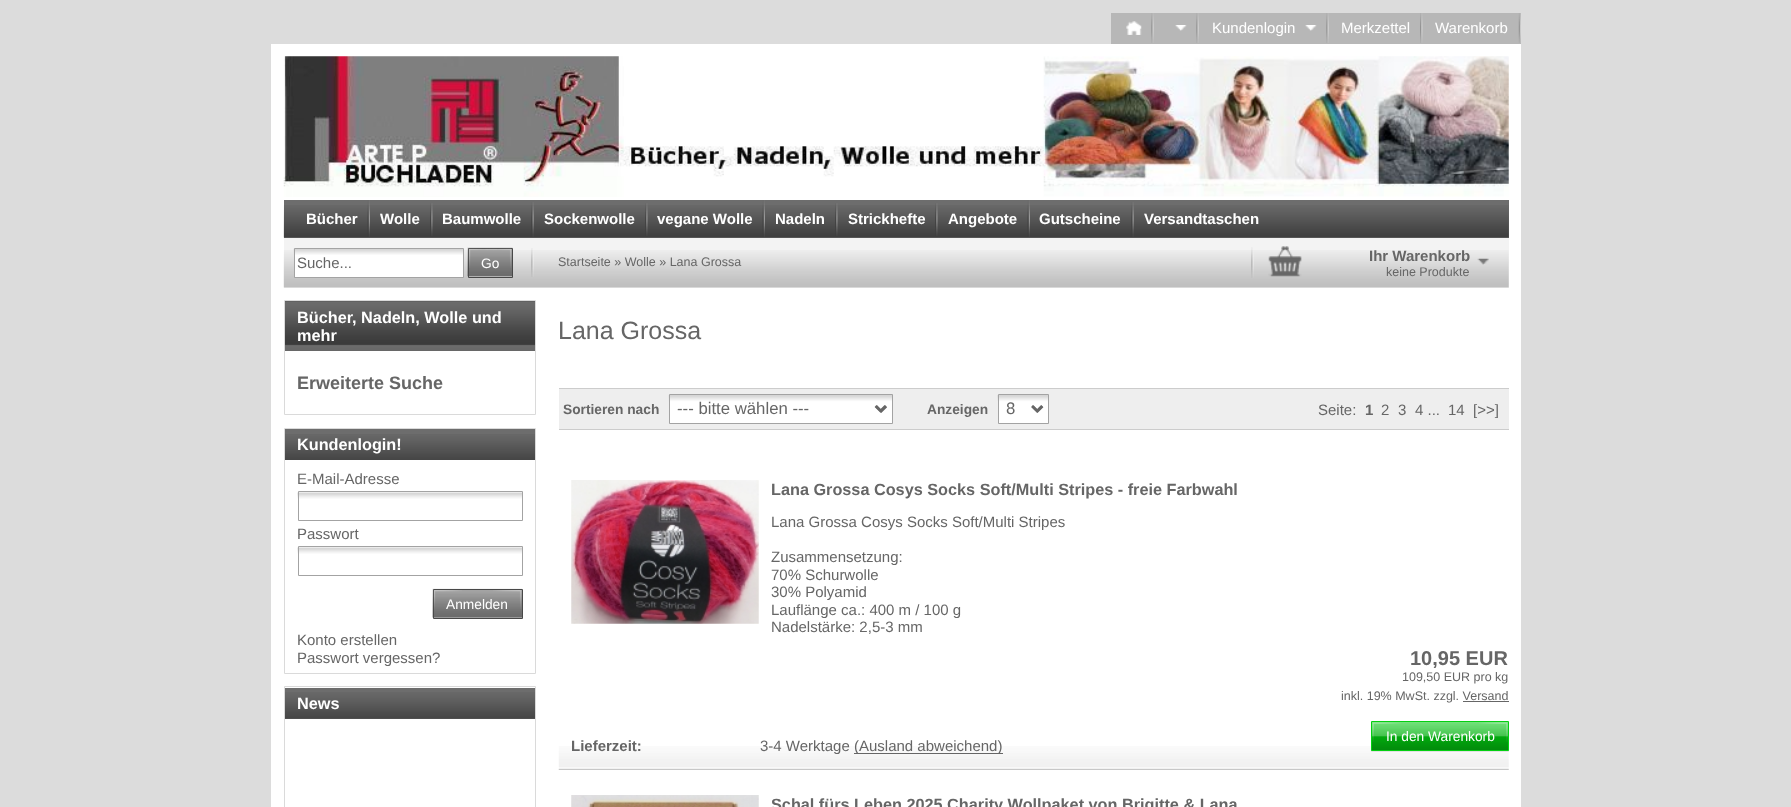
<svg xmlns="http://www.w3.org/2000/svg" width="1791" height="807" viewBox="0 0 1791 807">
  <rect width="100%" height="100%" fill="#dcdcdc"/>
  <path d="M1111 13h410v31H1111z" fill="#b7b7b7"/>
  <image x="1151" y="13" width="3" height="30" href="img/1.png"/>
  <image x="1126" y="21" width="16" height="14" href="img/2.png"/>
  <image x="1196" y="13" width="3" height="30" href="img/1.png"/>
  <image x="1175" y="25" width="12" height="6" href="img/3.png"/>
  <image x="1326" y="13" width="3" height="30" href="img/1.png"/>
  <image x="1305" y="25" width="12" height="6" href="img/3.png"/>
  <image x="1420" y="13" width="3" height="30" href="img/4.png"/>
  <image x="1518" y="13" width="3" height="30" href="img/5.png"/>
  <path d="M271 44h1250v763H271z" fill="#fff"/>
  <image x="283" y="56" width="1226" height="141" href="img/6.png"/>
  <path d="M284 200h1225v38H284z" fill="#6d6d6d"/>
  <image x="283" y="205" width="1226" height="33" href="img/7.png"/>
  <image x="367" y="200" width="3" height="37" href="img/8.png"/>
  <image x="430" y="203" width="3" height="33" href="img/9.png"/>
  <image x="531" y="202" width="3" height="35" href="img/10.png"/>
  <image x="645" y="203" width="3" height="33" href="img/9.png"/>
  <image x="762" y="200" width="3" height="37" href="img/8.png"/>
  <image x="835" y="203" width="3" height="33" href="img/9.png"/>
  <image x="935" y="203" width="3" height="33" href="img/9.png"/>
  <image x="1027" y="200" width="3" height="37" href="img/8.png"/>
  <image x="1131" y="202" width="3" height="35" href="img/10.png"/>
  <path d="M284 238h1225v50H284z" fill="#f3f3f3"/>
  <image x="283" y="250" width="1226" height="38" href="img/11.png"/>
  <image x="531" y="248" width="3" height="29" href="img/12.png"/>
  <path d="M295 249h168v28H295z" fill="#fff"/>
  <image x="293" y="248" width="170" height="7" href="img/13.png"/>
  <path d="M294.5 248.5h169v29H294.5z" fill="none" stroke="#a3a3a3"/>
  <path d="M469 249h43v26H469z" fill="#c8c8c8"/>
  <image x="467" y="247" width="46" height="30" href="img/14.png"/>
  <path d="M468.5 248.5h44v29H468.5z" fill="none" stroke="#484848"/>
  <image x="468" y="248" width="29" height="20" href="img/15.png"/>
  <image x="485" y="248" width="27" height="20" href="img/16.png"/>
  <image x="1251" y="247" width="3" height="31" href="img/17.png"/>
  <image x="1268" y="246" width="34" height="31" href="img/18.png"/>
  <image x="1477" y="258" width="12" height="7" href="img/19.png"/>
  <path d="M284.5 300.5h251v114H284.5z" fill="none" stroke="#dadada"/>
  <path d="M285 301h250v50H285z" fill="#6d6d6d"/>
  <image x="285" y="301" width="250" height="50" href="img/20.png"/>
  <path d="M284.5 428.5h251v245H284.5z" fill="none" stroke="#dadada"/>
  <path d="M285 429h250v31H285z" fill="#6d6d6d"/>
  <image x="285" y="434" width="250" height="26" href="img/21.png"/>
  <image x="297" y="492" width="225" height="7" href="img/22.png"/>
  <path d="M298.5 491.5h224v29H298.5z" fill="none" stroke="#a3a3a3"/>
  <image x="297" y="547" width="225" height="7" href="img/22.png"/>
  <path d="M298.5 546.5h224v29H298.5z" fill="none" stroke="#a3a3a3"/>
  <path d="M434 590h88v28H434z" fill="#c8c8c8"/>
  <image x="432" y="588" width="90" height="30" href="img/23.png"/>
  <path d="M433.5 589.5h89v29H433.5z" fill="none" stroke="#484848"/>
  <image x="433" y="590" width="29" height="20" href="img/24.png"/>
  <image x="493" y="590" width="29" height="19" href="img/25.png"/>
  <path d="M284.5 686.5h251v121H284.5z" fill="none" stroke="#dadada"/>
  <path d="M285 688h250v31H285z" fill="#6d6d6d"/>
  <image x="285" y="692" width="250" height="27" href="img/26.png"/>
  <path d="M559 389h950v40H559z" fill="#eee"/>
  <path d="M559 388h950v1H559z" fill="#ccc"/>
  <path d="M559 429h950v1H559z" fill="#ccc"/>
  <path d="M670 395h222v28H670z" fill="#fff"/>
  <image x="668" y="395" width="224" height="18" href="img/27.png"/>
  <path d="M669.5 394.5h223v29H669.5z" fill="none" stroke="#a3a3a3"/>
  <path d="M875.5 406L880.5 411L885.5 406" fill="none" stroke="#666" stroke-width="2.5"/>
  <path d="M999 395h49v28H999z" fill="#fff"/>
  <image x="997" y="395" width="51" height="18" href="img/28.png"/>
  <path d="M998.5 394.5h50v29H998.5z" fill="none" stroke="#a3a3a3"/>
  <path d="M1032 406L1037 411L1042 406" fill="none" stroke="#666" stroke-width="2.5"/>
  <image x="571" y="480" width="188" height="144" href="img/29.png"/>
  <path d="M1463 701h46v1H1463z" fill="#666"/>
  <image x="558" y="746" width="951" height="24" href="img/30.png"/>
  <path d="M1372 722h136v28H1372z" fill="#03d012"/>
  <image x="1371" y="722" width="138" height="30" href="img/31.png"/>
  <path d="M1371.5 721.5h137v29H1371.5z" fill="none" stroke="#03d012"/>
  <image x="1372" y="722" width="29" height="20" href="img/32.png"/>
  <image x="1479" y="722" width="29" height="20" href="img/33.png"/>
  <path d="M854 753h149v1H854z" fill="#666"/>
  <image x="571" y="795" width="188" height="12" href="img/34.png"/>
  <g font-family="Liberation Sans" font-size="15" fill="#fff">
    <text x="1212" y="33">Kundenlogin</text>
    <text x="1341" y="33">Merkzettel</text>
    <text x="1435" y="33">Warenkorb</text>
  </g>
  <g font-family="Liberation Sans" font-size="15" font-weight="bold" fill="#fff">
    <text x="306" y="224">Bücher</text>
    <text x="380" y="224">Wolle</text>
    <text x="442" y="224">Baumwolle</text>
    <text x="544" y="224">Sockenwolle</text>
    <text x="657" y="224">vegane Wolle</text>
    <text x="775" y="224">Nadeln</text>
    <text x="848" y="224">Strickhefte</text>
    <text x="948" y="224">Angebote</text>
    <text x="1039" y="224">Gutscheine</text>
    <text x="1144" y="224">Versandtaschen</text>
  </g>
  <text x="297" y="268" font-family="Liberation Sans" font-size="15" fill="#666">Suche...</text>
  <text x="481" y="268" font-family="Liberation Sans" font-size="13.75" fill="#fff">Go</text>
  <text x="558" y="266" font-family="Liberation Sans" font-size="12.5" fill="#666">Startseite » Wolle » Lana Grossa</text>
  <text x="1369" y="261" font-family="Liberation Sans" font-size="15" font-weight="bold" fill="#666">Ihr Warenkorb</text>
  <text x="1386" y="276" font-family="Liberation Sans" font-size="12.5" fill="#666">keine Produkte</text>
  <g font-family="Liberation Sans" font-size="16.25" font-weight="bold" fill="#fff">
    <text x="297" y="323">Bücher, Nadeln, Wolle und</text>
    <text x="297" y="341">mehr</text>
  </g>
  <text x="297" y="389" font-family="Liberation Sans" font-size="18" font-weight="bold" fill="#666">Erweiterte Suche</text>
  <text x="297" y="450" font-family="Liberation Sans" font-size="16.25" font-weight="bold" fill="#fff">Kundenlogin!</text>
  <g font-family="Liberation Sans" font-size="15" fill="#666">
    <text x="297" y="484">E-Mail-Adresse</text>
    <text x="297" y="539">Passwort</text>
  </g>
  <text x="446" y="609" font-family="Liberation Sans" font-size="13.75" fill="#fff">Anmelden</text>
  <g font-family="Liberation Sans" font-size="15" fill="#666">
    <text x="297" y="645">Konto erstellen</text>
    <text x="297" y="663">Passwort vergessen?</text>
  </g>
  <text x="297" y="709" font-family="Liberation Sans" font-size="16.25" font-weight="bold" fill="#fff">News</text>
  <text x="558" y="339" font-family="Liberation Sans" font-size="25" fill="#666">Lana Grossa</text>
  <text x="563" y="414" font-family="Liberation Sans" font-size="13.75" font-weight="bold" fill="#666">Sortieren nach</text>
  <text x="677" y="414" font-family="Liberation Sans" font-size="16.75" fill="#666">--- bitte wählen ---</text>
  <text x="927" y="414" font-family="Liberation Sans" font-size="13.75" font-weight="bold" fill="#666">Anzeigen</text>
  <text x="1006" y="414" font-family="Liberation Sans" font-size="16.75" fill="#666">8</text>
  <text x="1318" y="415" font-family="Liberation Sans" font-size="15" fill="#666">Seite:</text>
  <text x="1365" y="415" font-family="Liberation Sans" font-size="15" font-weight="bold" fill="#666">1</text>
  <g font-family="Liberation Sans" font-size="15" fill="#666">
    <text x="1381" y="415">2</text>
    <text x="1398" y="415">3</text>
    <text x="1415" y="415">4 ...</text>
    <text x="1448" y="415">14</text>
    <text x="1473" y="415">[&gt;&gt;]</text>
  </g>
  <text x="771" y="495" font-family="Liberation Sans" font-size="16.25" font-weight="bold" fill="#666">Lana Grossa Cosys Socks Soft/Multi Stripes - freie Farbwahl</text>
  <g font-family="Liberation Sans" font-size="15" fill="#666">
    <text x="771" y="527">Lana Grossa Cosys Socks Soft/Multi Stripes</text>
    <text x="771" y="562">Zusammensetzung:</text>
    <text x="771" y="580">70% Schurwolle</text>
    <text x="771" y="597">30% Polyamid</text>
    <text x="771" y="615">Lauflänge ca.: 400 m / 100 g</text>
    <text x="771" y="632">Nadelstärke: 2,5-3 mm</text>
  </g>
  <text x="1410" y="665" font-family="Liberation Sans" font-size="20" font-weight="bold" fill="#666">10,95 EUR</text>
  <g font-family="Liberation Sans" font-size="12.5" fill="#666">
    <text x="1402" y="681">109,50 EUR pro kg</text>
    <text x="1341" y="700">inkl. 19% MwSt. zzgl. Versand</text>
  </g>
  <text x="1386" y="741" font-family="Liberation Sans" font-size="13.75" fill="#fff">In den Warenkorb</text>
  <text x="571" y="751" font-family="Liberation Sans" font-size="15" font-weight="bold" fill="#666">Lieferzeit:</text>
  <g font-family="Liberation Sans" font-size="15" fill="#666">
    <text x="760" y="751">3-4 Werktage</text>
    <text x="854" y="751">(Ausland abweichend)</text>
  </g>
  <text x="771" y="810" font-family="Liberation Sans" font-size="16.25" font-weight="bold" fill="#666">Schal fürs Leben 2025 Charity Wollpaket von Brigitte &amp; Lana</text>
</svg>
